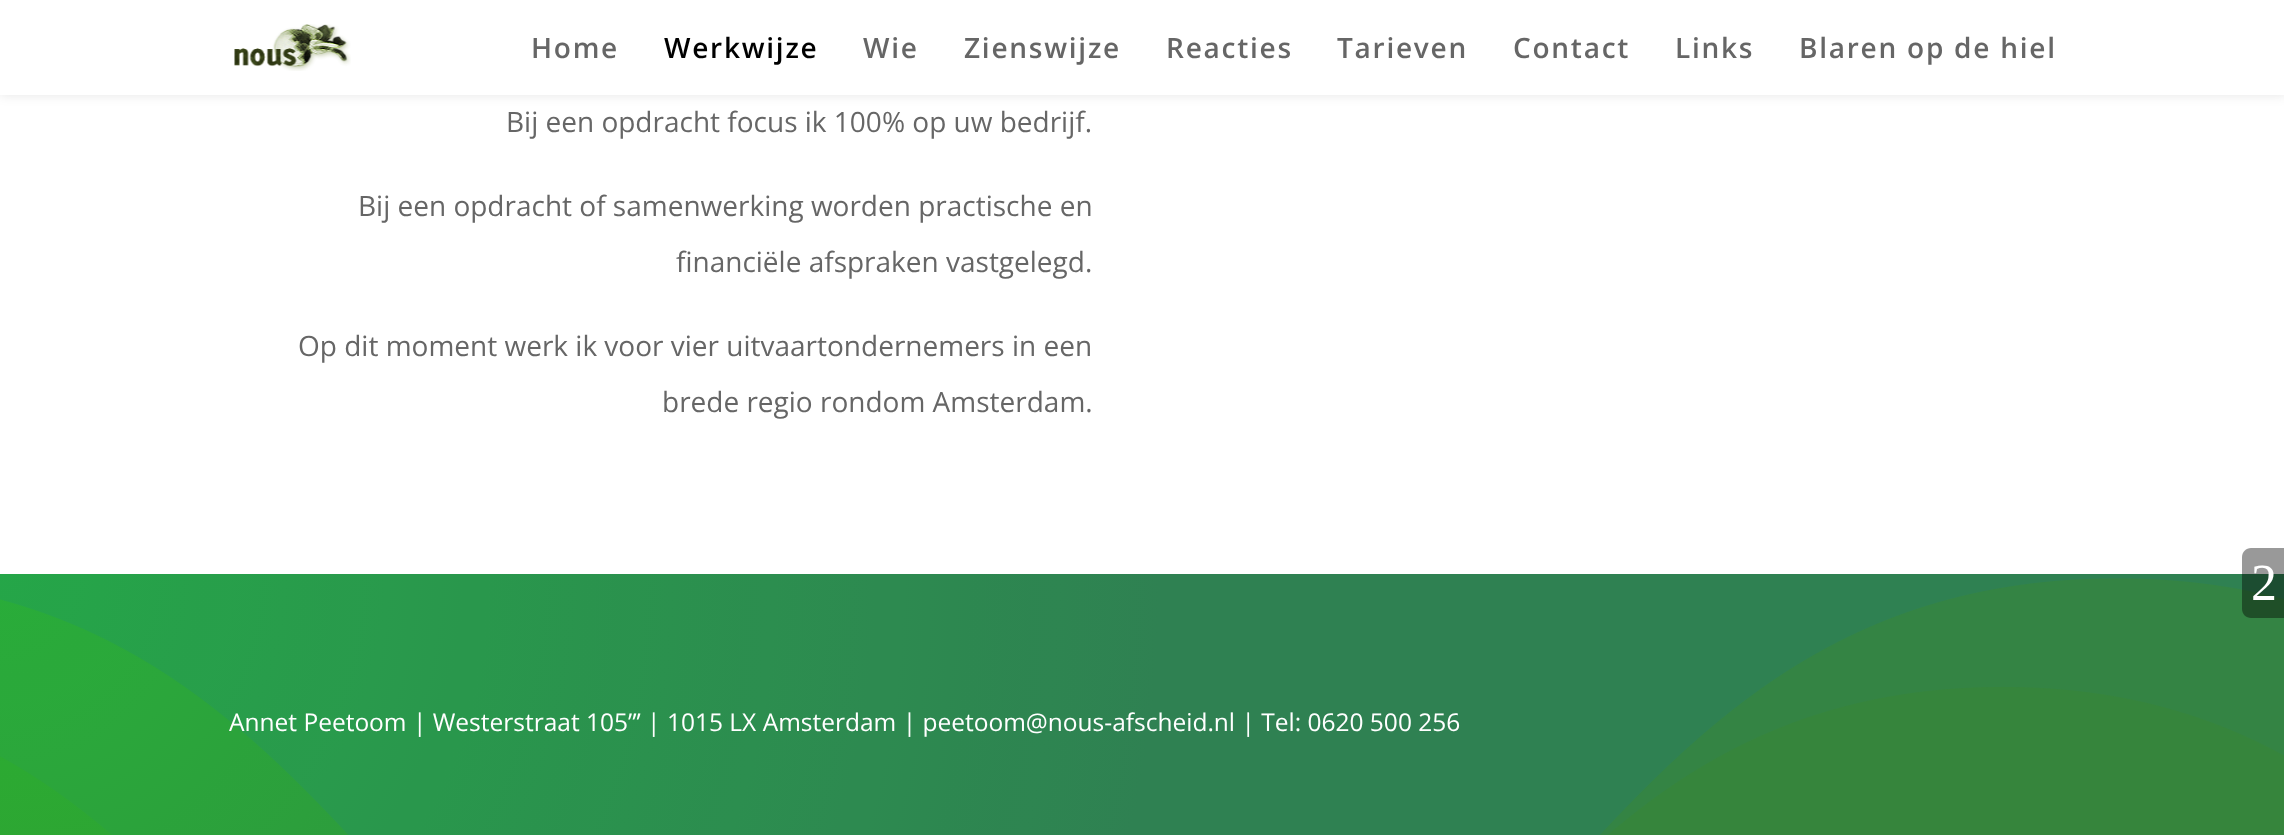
<svg xmlns="http://www.w3.org/2000/svg" width="2284" height="835" viewBox="0 0 2284 835">
  <defs>
    <radialGradient id="g1" gradientUnits="userSpaceOnUse" cx="0" cy="574" r="2321"><stop offset="0" stop-color="#2cb32c"/><stop offset="0.5" stop-color="#388638"/></radialGradient>
  </defs>
  <rect width="100%" height="100%" fill="#fff"/>
  <path d="M0 0h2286v95H0z" fill="#0000001a" filter="blur(6px)"/>
  <path d="M0 0h2284v95H0z" fill="#fff"/>
  <image x="234" y="24" width="117" height="47" href="img/1.png"/>
  <path d="M0 574h2284v261H0z" fill="url(#g1)"/>
  <image x="0" y="574" width="2284" height="261" href="img/2.png"/>
  <path d="M2251 548H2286V618H2251C2246 618 2242 614 2242 609V557C2242 552 2246 548 2251 548Z" fill="#00000066"/>
  <text x="531" y="58" font-family="Open Sans" font-size="28" font-weight="600" letter-spacing="1.75" fill="#666">Home</text>
  <text x="664" y="58" font-family="Open Sans" font-size="28" font-weight="600" letter-spacing="1.75" fill="#000">Werkwijze</text>
  <g font-family="Open Sans" font-size="28" font-weight="600" letter-spacing="1.75" fill="#666">
    <text x="863" y="58">Wie</text>
    <text x="964" y="58">Zienswijze</text>
    <text x="1166" y="58">Reacties</text>
    <text x="1337" y="58">Tarieven</text>
    <text x="1513" y="58">Contact</text>
    <text x="1675" y="58">Links</text>
    <text x="1799" y="58">Blaren op de hiel</text>
  </g>
  <g font-family="Open Sans" font-size="28" fill="#666">
    <text x="506" y="132">Bij een opdracht focus ik 100% op uw bedrijf.</text>
    <text x="358" y="216">Bij een opdracht of samenwerking worden practische en</text>
    <text x="676" y="272">financiële afspraken vastgelegd.</text>
    <text x="298" y="356">Op dit moment werk ik voor vier uitvaartondernemers in een</text>
    <text x="662" y="412">brede regio rondom Amsterdam.</text>
  </g>
  <text x="229" y="731" font-family="Open Sans" font-size="24.5" fill="#fff">Annet Peetoom | Westerstraat 105”’ | 1015 LX Amsterdam | peetoom@nous-afscheid.nl | Tel: 0620 500 256</text>
  <text x="2251" y="600" font-family="Liberation Serif" font-size="52" fill="#fff">2</text>
</svg>
